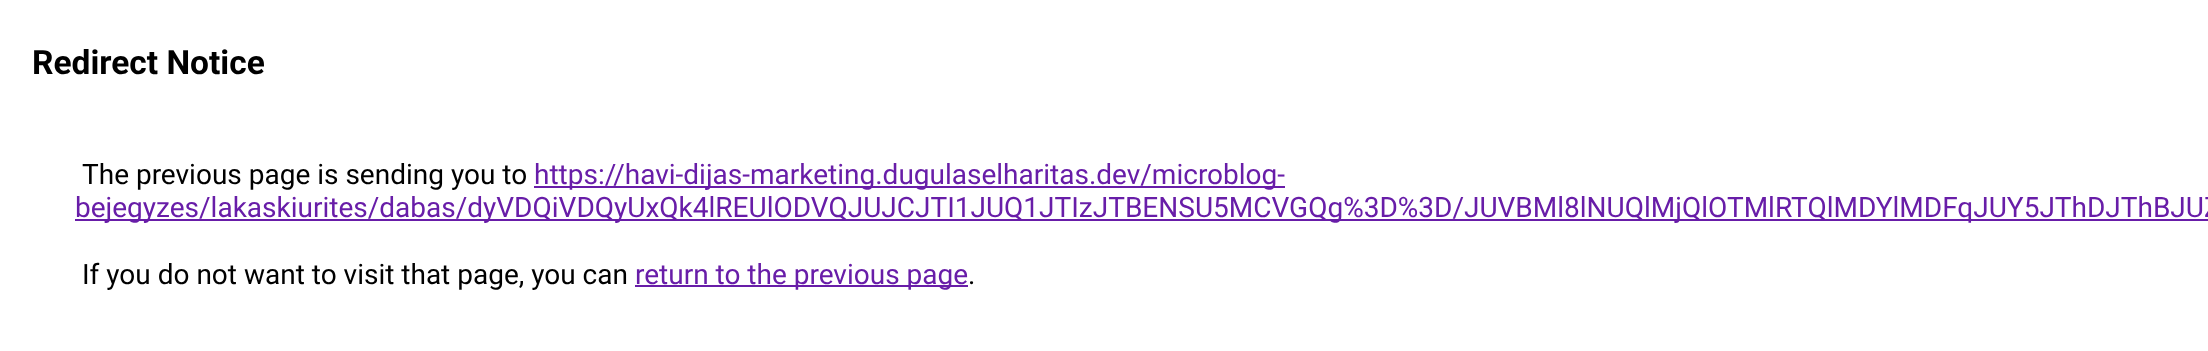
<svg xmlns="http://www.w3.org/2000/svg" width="2208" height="351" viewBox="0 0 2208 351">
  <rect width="100%" height="100%" fill="#fff"/>
  <path d="M534 186h751v2H534z" fill="#681da8"/>
  <path d="M75 219h2133v2H75z" fill="#681da8"/>
  <path d="M635 285h333v2H635z" fill="#681da8"/>
  <text x="32" y="74" font-family="Roboto" font-size="33.5" font-weight="bold" fill="#000">Redirect Notice</text>
  <text x="82" y="184" font-family="Roboto" font-size="28" fill="#000">The previous page is sending you to</text>
  <g font-family="Roboto" font-size="28" fill="#681da8">
    <text x="534" y="184">https://havi-dijas-marketing.dugulaselharitas.dev/microblog-</text>
    <text x="75" y="217">bejegyzes/lakaskiurites/dabas/dyVDQiVDQyUxQk4lREUlODVQJUJCJTI1JUQ1JTIzJTBENSU5MCVGQg%3D%3D/JUVBMl8lNUQlMjQlOTMlRTQlMDYlMDFqJUY5JThDJThBJUZ</text>
  </g>
  <text x="82" y="284" font-family="Roboto" font-size="28" fill="#000">If you do not want to visit that page, you can</text>
  <text x="635" y="284" font-family="Roboto" font-size="28" fill="#681da8">return to the previous page</text>
  <text x="968" y="284" font-family="Roboto" font-size="28" fill="#000">.</text>
</svg>
